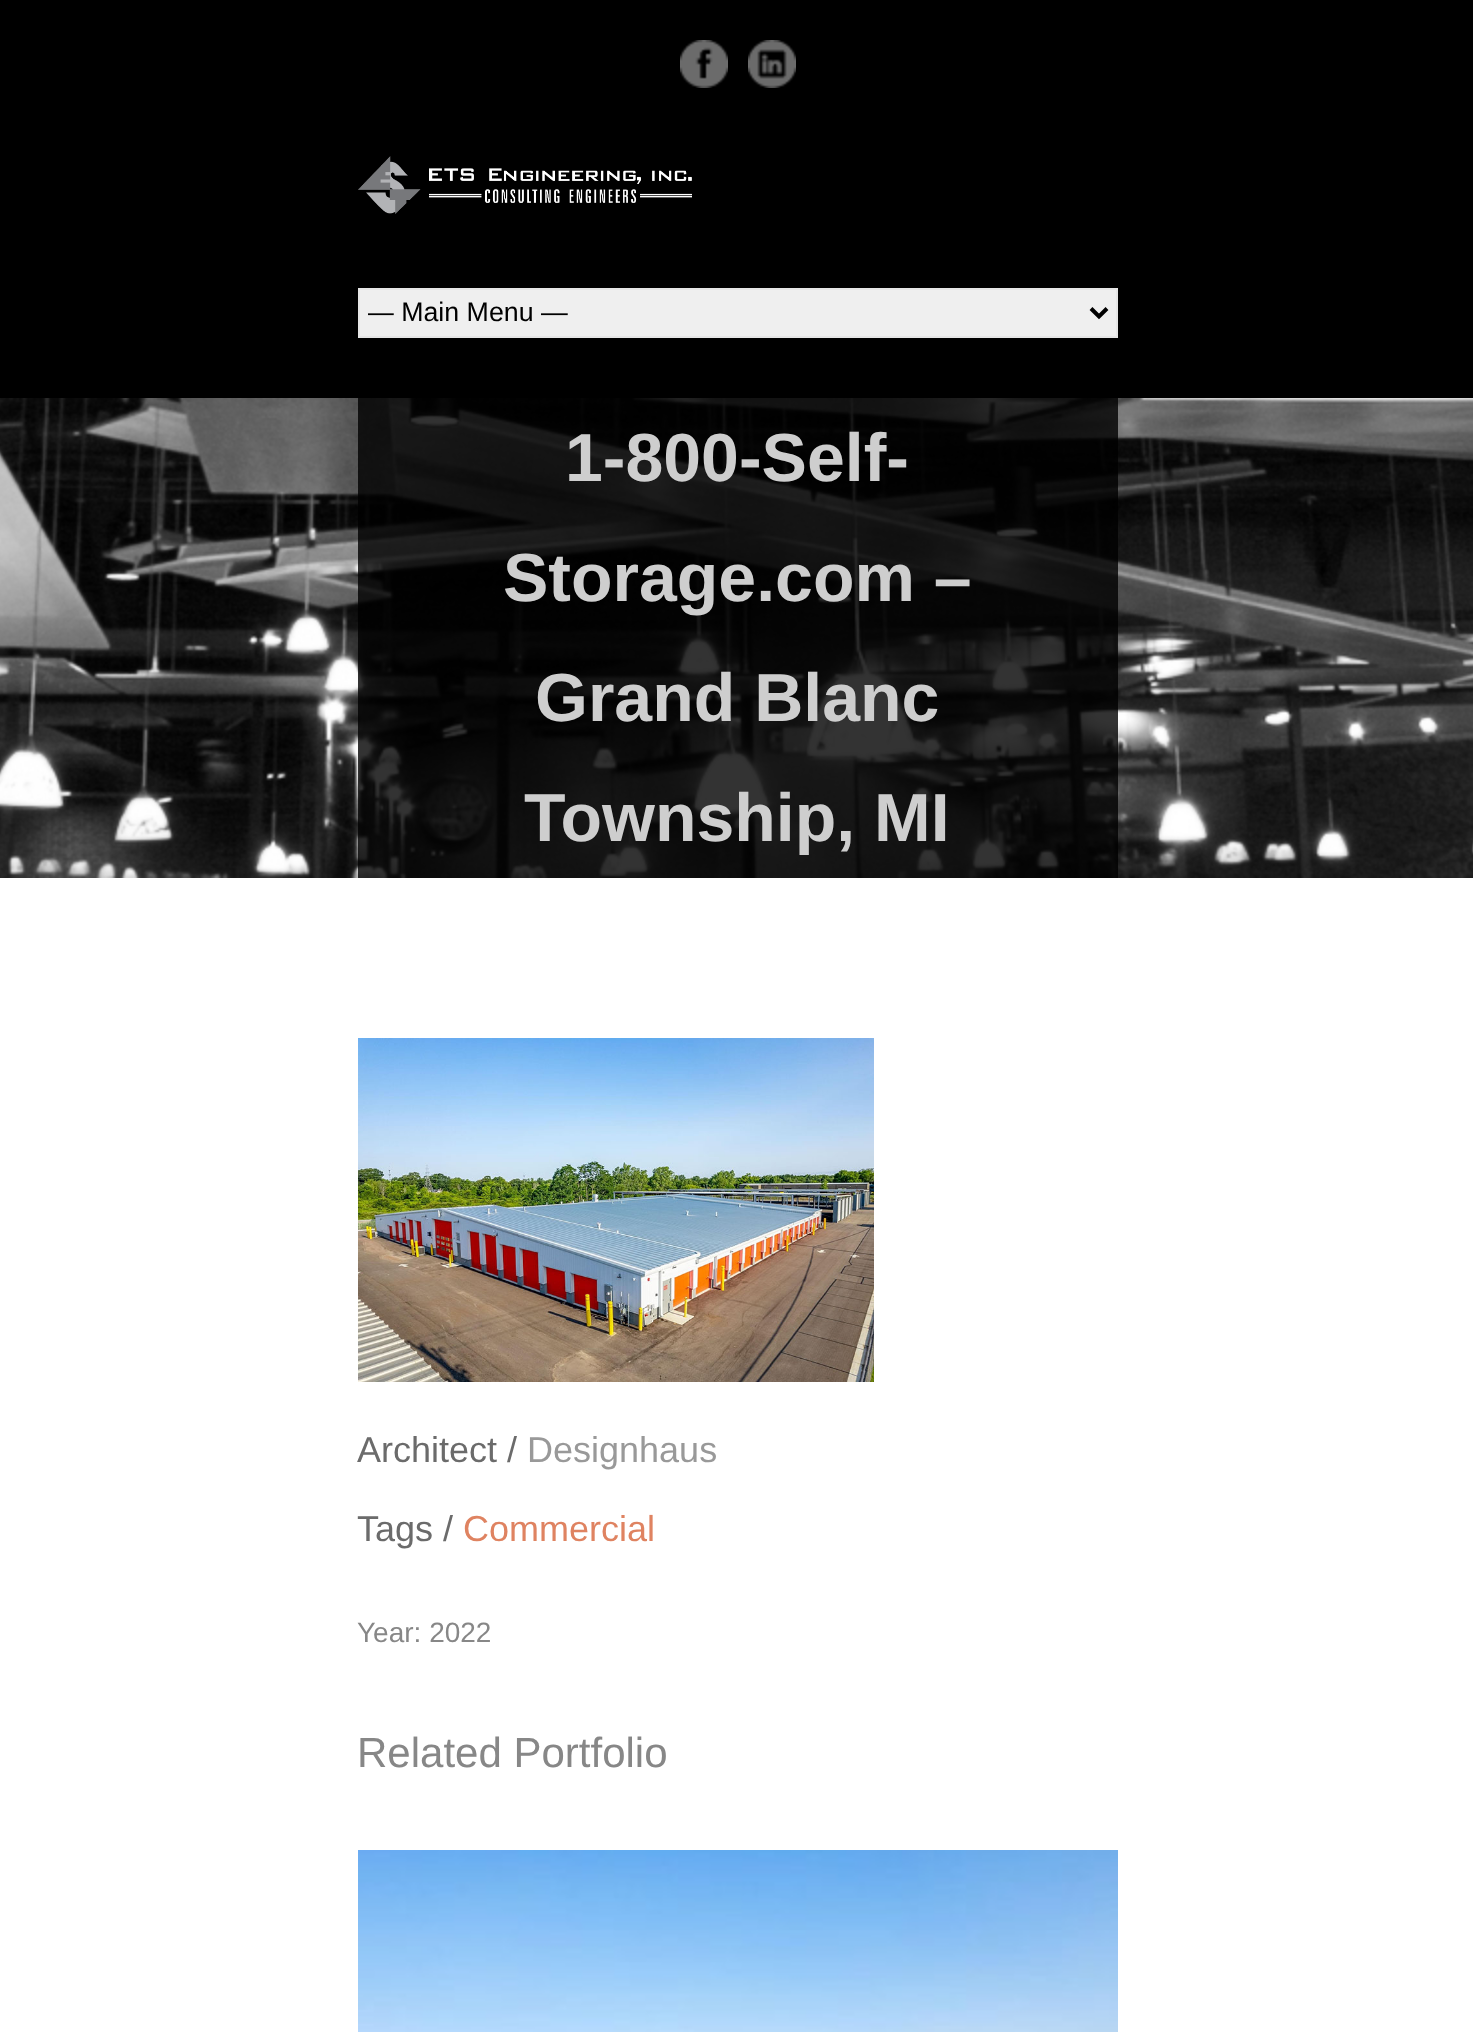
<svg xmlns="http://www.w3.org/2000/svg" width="1473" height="2032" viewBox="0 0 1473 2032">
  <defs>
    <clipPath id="clip1"><path d="M368 296h716v34H368z"/></clipPath>
  </defs>
  <rect width="100%" height="100%" fill="#fff"/>
  <path d="M0 0h1473v398H0z" fill="#000"/>
  <image x="680" y="40" width="48" height="48" href="img/1.png"/>
  <image x="748" y="40" width="48" height="48" href="img/2.png"/>
  <image x="358" y="156" width="334" height="58" href="img/3.png"/>
  <path d="M359 289h758v48H359z" fill="#efefef" stroke="#e6e6e6" stroke-width="2"/>
  <path d="M1091 308.5L1099 316.5L1107 308.5" fill="none" stroke="#000" stroke-width="4"/>
  <image x="0" y="398" width="1473" height="480" href="img/4.png"/>
  <path d="M358 398h760v480H358z" fill="#000000cc"/>
  <image x="358" y="1038" width="516" height="344" href="img/5.png"/>
  <image x="358" y="1850" width="760" height="182" href="img/6.png"/>
  <g clip-path="url(#clip1)">
    <text x="367" y="321" font-family="Liberation Sans" font-size="26.75" fill="#000">— Main Menu —</text>
  </g>
  <g font-family="Liberation Sans" font-size="68" font-weight="bold" fill="#cecece">
    <text x="565" y="481">1-800-Self-</text>
    <text x="503" y="601">Storage.com –</text>
    <text x="535" y="721">Grand Blanc</text>
    <text x="524" y="841">Township, MI</text>
  </g>
  <text x="357" y="1462" font-family="Liberation Sans" font-size="36" fill="#6b6b6b">Architect /</text>
  <text x="527" y="1462" font-family="Liberation Sans" font-size="36" fill="#999">Designhaus</text>
  <text x="357" y="1541" font-family="Liberation Sans" font-size="36" fill="#6b6b6b">Tags /</text>
  <text x="463" y="1541" font-family="Liberation Sans" font-size="36" fill="#df8361">Commercial</text>
  <text x="357" y="1642" font-family="Liberation Sans" font-size="28" fill="#878787">Year: 2022</text>
  <text x="357" y="1767" font-family="Liberation Sans" font-size="42" fill="#878787">Related Portfolio</text>
</svg>
